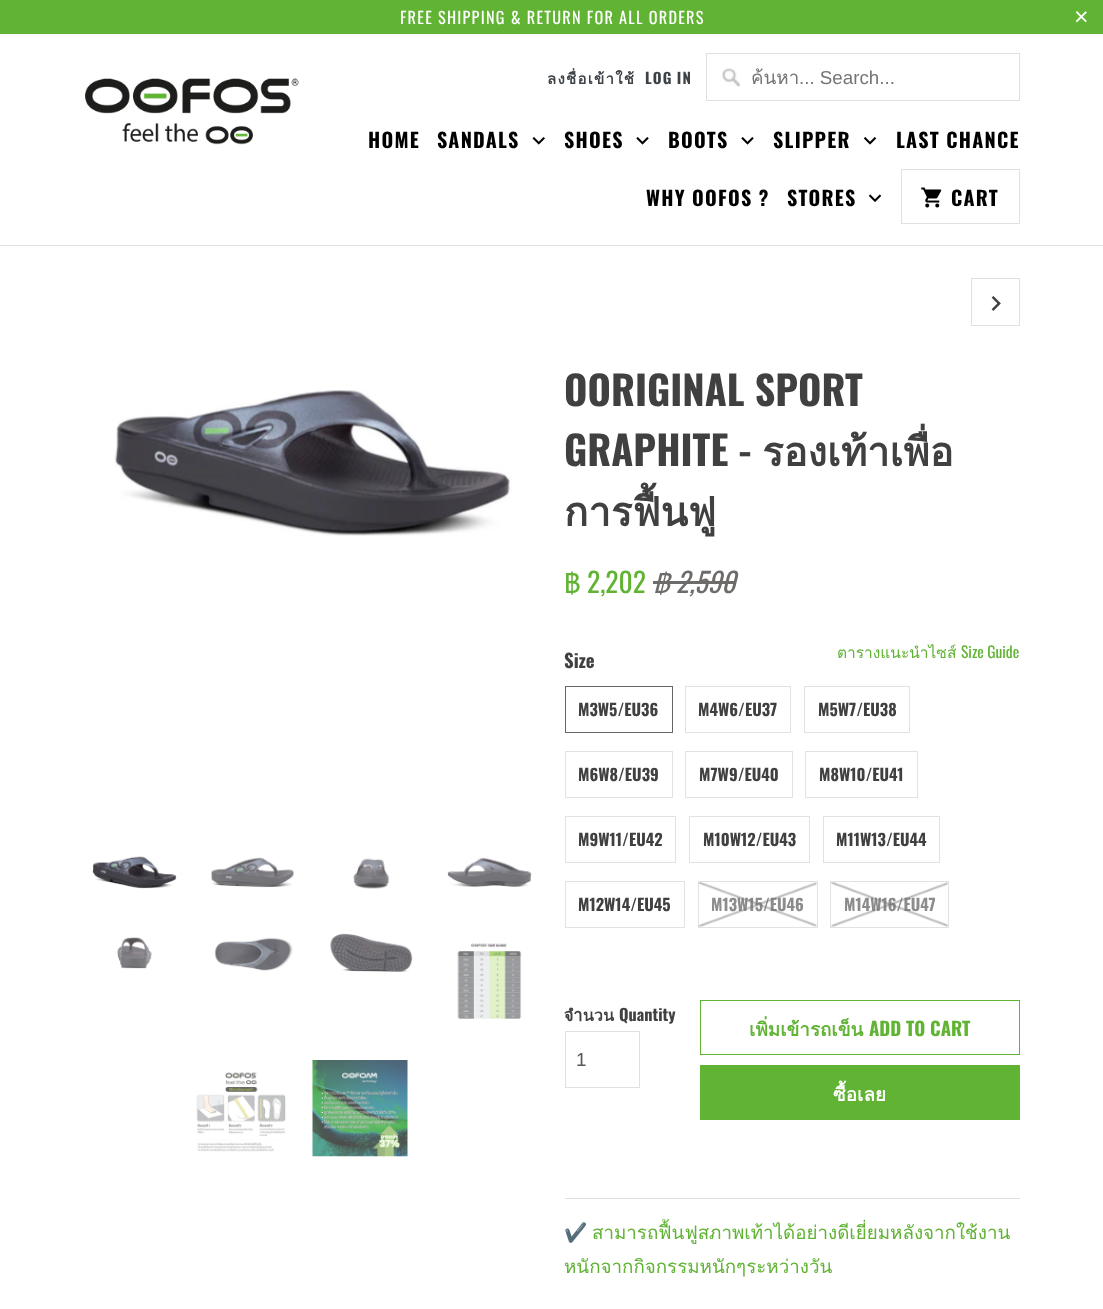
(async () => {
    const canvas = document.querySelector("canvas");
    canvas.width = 1103;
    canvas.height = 1309;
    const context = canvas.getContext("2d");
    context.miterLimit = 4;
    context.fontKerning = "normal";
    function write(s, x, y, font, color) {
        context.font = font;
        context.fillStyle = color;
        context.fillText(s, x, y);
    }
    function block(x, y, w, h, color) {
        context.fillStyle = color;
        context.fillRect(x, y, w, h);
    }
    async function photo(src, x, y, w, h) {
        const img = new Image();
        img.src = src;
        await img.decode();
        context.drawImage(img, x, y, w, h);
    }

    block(0, 0, 1103, 1309, "rgb(255, 255, 255)");
    block(0, 0, 1103, 34, "rgb(96, 179, 51)");
    context.letterSpacing = "1.25px";
    write("FREE SHIPPING & RETURN FOR ALL ORDERS", 400, 24, "16.25px Oswald", "rgb(255, 255, 255)");
    write("×", 1074, 25, "25px Liberation Sans", "rgb(255, 255, 255)");
    block(0, 245, 1103, 1, "rgb(224, 224, 224)");
    await photo("media/1.png", 85, 78, 214, 67);
    write("ลงชื่อเข้าใช้", 547, 84, "bold 15px Loma", "rgb(61, 66, 71)");
    context.wordSpacing = "-1px";
    write("LOG IN", 645, 84, "bold 15px Oswald", "rgb(61, 66, 71)");
    await photo("media/2.png", 722, 68, 18, 19);
    context.strokeStyle = "rgb(224, 224, 224)";
    context.strokeRect(706.5, 53.5, 313, 47);
    context.save();
    context.beginPath();
    context.rect(751, 63, 249, 30);
    context.clip();
    context.letterSpacing = "0px";
    context.wordSpacing = "0px";
    write("ค้นหา", 751, 84, "18.75px Loma", "rgb(117, 117, 117)");
    context.restore();
    context.letterSpacing = "0px";
    context.wordSpacing = "0px";
    write("... Search...", 799, 84, "18.75px Liberation Sans", "rgb(117, 117, 117)");
    context.letterSpacing = "1.25px";
    write("HOME", 368, 148, "bold 20px Oswald", "rgb(0, 0, 0)");
    write("SANDALS", 437, 148, "bold 20px Oswald", "rgb(0, 0, 0)");
    await photo("media/3.png", 532, 137, 13, 8);
    write("SHOES", 564, 148, "bold 20px Oswald", "rgb(0, 0, 0)");
    await photo("media/4.png", 636, 137, 13, 8);
    write("BOOTS", 668, 148, "bold 20px Oswald", "rgb(0, 0, 0)");
    await photo("media/4.png", 741, 137, 13, 8);
    write("SLIPPER", 773, 148, "bold 20px Oswald", "rgb(0, 0, 0)");
    await photo("media/5.png", 863, 137, 14, 8);
    write("LAST CHANCE", 896, 148, "bold 20px Oswald", "rgb(0, 0, 0)");
    write("WHY OOFOS ?", 646, 206, "bold 20px Oswald", "rgb(0, 0, 0)");
    write("STORES", 787, 206, "bold 20px Oswald", "rgb(0, 0, 0)");
    await photo("media/6.png", 868, 194, 14, 8);
    context.strokeRect(901.5, 169.5, 118, 54);
    await photo("media/7.png", 921, 187, 21, 21);
    write("CART", 951, 206, "bold 20px Oswald", "rgb(0, 0, 0)");
    context.strokeRect(971.5, 278.5, 48, 47);
    await photo("media/8.png", 991, 296, 10, 15);
    await photo("media/9.png", 114, 390, 398, 146);
    await photo("media/10.png", 92, 856, 85, 33);
    await photo("media/11.png", 210, 857, 85, 31);
    await photo("media/12.png", 353, 858, 37, 31);
    await photo("media/13.png", 447, 857, 85, 30);
    await photo("media/14.png", 117, 937, 35, 32);
    await photo("media/15.png", 214, 937, 79, 34);
    await photo("media/16.png", 330, 933, 83, 39);
    await photo("media/17.png", 457, 943, 65, 76);
    await photo("media/18.png", 196, 1072, 90, 80);
    await photo("media/19.png", 312, 1060, 96, 97);
    context.letterSpacing = "0px";
    write("OORIGINAL SPORT", 564, 406, "bold 40px Oswald", "rgb(64, 64, 64)");
    write("GRAPHITE -", 564, 466, "bold 40px Oswald", "rgb(64, 64, 64)");
    write("รองเท้าเพื่อ", 762, 466, "bold 40px Loma", "rgb(64, 64, 64)");
    write("การฟื้นฟู", 564, 526, "bold 40px Loma", "rgb(64, 64, 64)");
    write("฿", 564, 593, "27.5px Loma", "rgb(96, 179, 51)");
    write("2,202", 587, 593, "27.5px Oswald", "rgb(96, 179, 51)");
    write("฿", 653, 593, "italic 27.5px Loma", "rgb(110, 108, 106)");
    block(653, 581, 82, 3, "rgb(110, 108, 106)");
    write("2,590", 676, 593, "italic 27.5px Oswald", "rgb(110, 108, 106)");
    write("ตารางแนะนำไซส์", 837, 658, "15.5px Loma", "rgb(96, 179, 51)");
    write("Size Guide", 961, 658, "15.5px Oswald", "rgb(96, 179, 51)");
    write("Size", 564, 668, "bold 18.75px Oswald", "rgb(64, 64, 64)");
    context.strokeStyle = "rgb(102, 102, 102)";
    context.strokeRect(565.5, 686.5, 107, 46);
    write("M3W5/EU36", 578, 716, "bold 16.25px Oswald", "rgb(64, 64, 64)");
    context.strokeStyle = "rgb(226, 226, 226)";
    context.strokeRect(685.5, 686.5, 105, 46);
    write("M4W6/EU37", 698, 716, "bold 16.25px Oswald", "rgb(64, 64, 64)");
    context.strokeRect(804.5, 686.5, 105, 46);
    write("M5W7/EU38", 818, 716, "bold 16.25px Oswald", "rgb(64, 64, 64)");
    context.strokeRect(565.5, 751.5, 107, 46);
    write("M6W8/EU39", 578, 781, "bold 16.25px Oswald", "rgb(64, 64, 64)");
    context.strokeRect(685.5, 751.5, 107, 46);
    write("M7W9/EU40", 699, 781, "bold 16.25px Oswald", "rgb(64, 64, 64)");
    context.strokeRect(805.5, 751.5, 112, 46);
    write("M8W10/EU41", 819, 781, "bold 16.25px Oswald", "rgb(64, 64, 64)");
    context.strokeRect(565.5, 816.5, 110, 46);
    write("M9W11/EU42", 578, 846, "bold 16.25px Oswald", "rgb(64, 64, 64)");
    context.strokeRect(689.5, 816.5, 120, 46);
    write("M10W12/EU43", 703, 846, "bold 16.25px Oswald", "rgb(64, 64, 64)");
    context.strokeRect(823.5, 816.5, 116, 46);
    write("M11W13/EU44", 836, 846, "bold 16.25px Oswald", "rgb(64, 64, 64)");
    context.strokeRect(565.5, 881.5, 119, 46);
    write("M12W14/EU45", 578, 911, "bold 16.25px Oswald", "rgb(64, 64, 64)");
    context.strokeRect(698.5, 881.5, 119, 46);
    write("M13W15/EU46", 711, 911, "bold 16.25px Oswald", "rgb(140, 140, 140)");
    await photo("media/20.png", 698, 882, 119, 45);
    context.strokeRect(830.5, 881.5, 118, 46);
    write("M14W16/EU47", 844, 911, "bold 16.25px Oswald", "rgb(140, 140, 140)");
    await photo("media/21.png", 831, 882, 117, 45);
    write("จำนวน", 564, 1021, "bold 16.25px Loma", "rgb(64, 64, 64)");
    write("Quantity", 619, 1021, "bold 16.25px Oswald", "rgb(64, 64, 64)");
    context.strokeStyle = "rgb(224, 224, 224)";
    context.strokeRect(565.5, 1031.5, 74, 56);
    write("1", 576, 1066, "18.75px Liberation Sans", "rgb(81, 89, 93)");
    context.strokeStyle = "rgb(96, 179, 51)";
    context.strokeRect(700.5, 1000.5, 319, 54);
    write("เพิ่มเข้ารถเข็น", 749, 1036, "bold 18.75px Loma", "rgb(96, 179, 51)");
    write("ADD TO CART", 869, 1036, "bold 18.75px Oswald", "rgb(96, 179, 51)");
    block(700, 1065, 320, 55, "rgb(96, 179, 51)");
    write("ซื้อเลย", 833, 1101, "bold 18.75px Loma", "rgb(255, 255, 255)");
    block(565, 1198, 455, 1, "rgb(224, 224, 224)");
    write("✔️", 564, 1239, "18.75px Noto Color Emoji", "rgb(96, 179, 51)");
    write("สามารถฟื้นฟูสภาพเท้าได้อย่างดีเยี่ยมหลังจากใช้งาน", 592, 1239, "18.75px Loma", "rgb(96, 179, 51)");
    write("หนักจากกิจกรรมหนักๆระหว่างวัน", 564, 1273, "18.75px Loma", "rgb(96, 179, 51)");
})();
